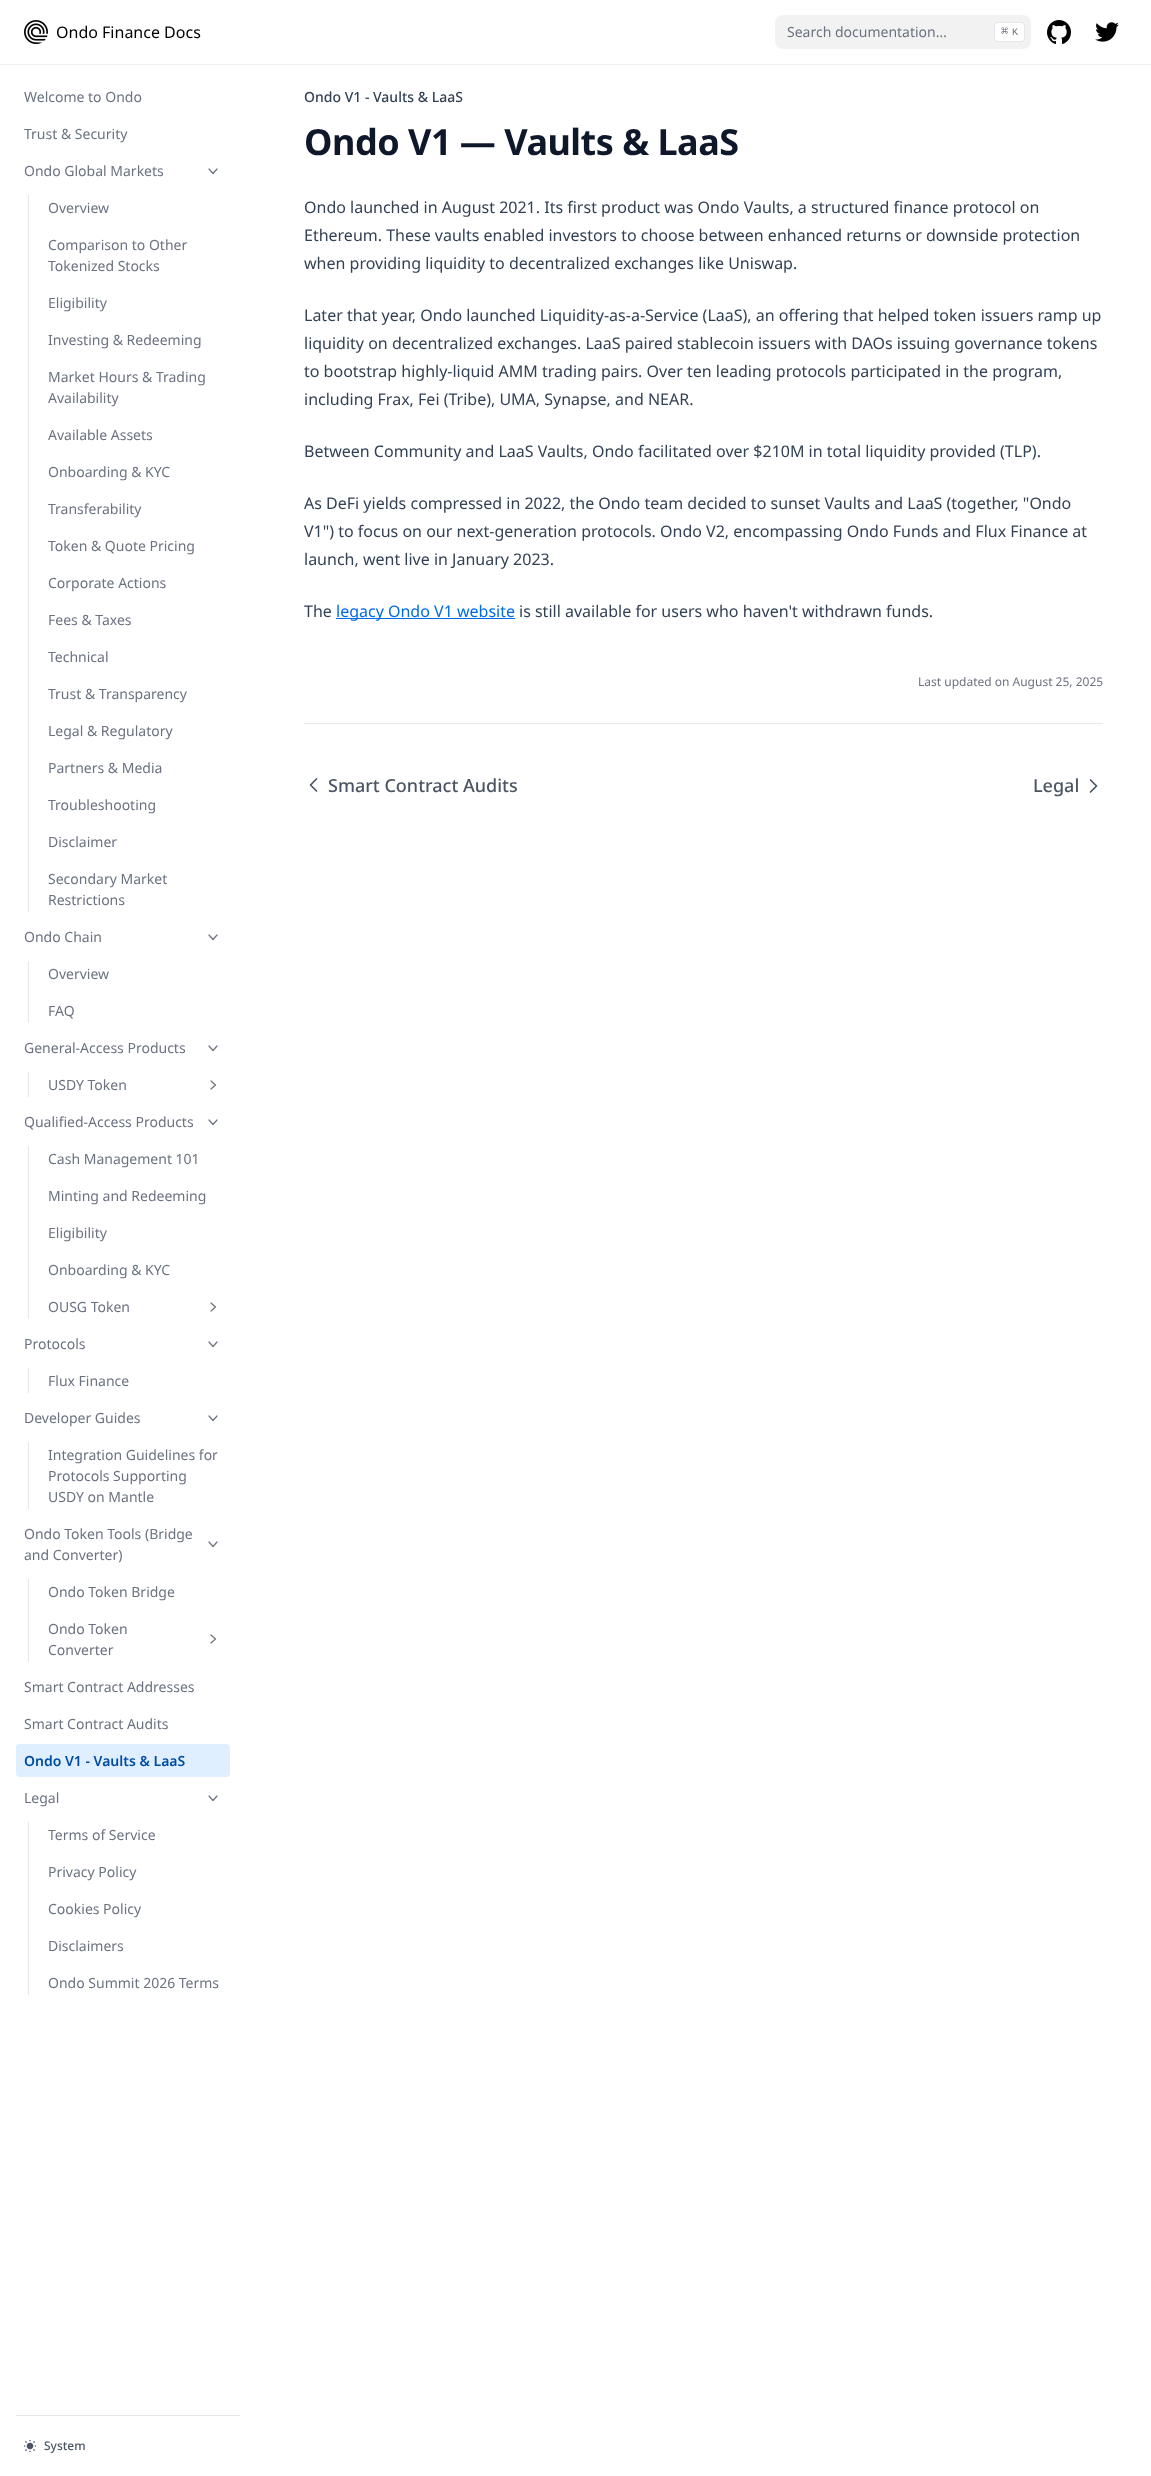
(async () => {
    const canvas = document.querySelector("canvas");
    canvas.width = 1151;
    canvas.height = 2476;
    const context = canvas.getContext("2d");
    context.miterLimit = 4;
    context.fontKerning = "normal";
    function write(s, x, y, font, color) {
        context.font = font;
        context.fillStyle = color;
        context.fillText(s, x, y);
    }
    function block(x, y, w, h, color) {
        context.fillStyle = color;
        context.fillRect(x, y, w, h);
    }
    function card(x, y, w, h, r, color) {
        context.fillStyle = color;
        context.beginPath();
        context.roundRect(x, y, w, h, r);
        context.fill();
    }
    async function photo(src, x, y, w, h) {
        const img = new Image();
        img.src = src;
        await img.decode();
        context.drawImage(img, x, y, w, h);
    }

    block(0, 0, 1151, 2476, "rgb(255, 255, 255)");
    await photo("media/1.png", 24, 20, 24, 24);
    write("Ondo Finance Docs", 56, 38, "16px Noto Sans", "rgb(0, 0, 0)");
    card(775, 15, 256, 34, 8, "rgb(242, 242, 242)");
    write("Search documentation…", 787, 37, "14px Noto Sans", "rgb(107, 114, 128)");
    context.fillStyle = "rgb(255, 255, 255)";
    context.beginPath();
    context.roundRect(994.5, 22.5, 30, 19, 3.5);
    context.fill();
    context.strokeStyle = "rgb(229, 231, 235)";
    context.stroke();
    write("⌘", 1001, 35, "12px DejaVu Sans Mono", "rgb(107, 114, 128)");
    write("K", 1012, 35, "10px Liberation Mono", "rgb(107, 114, 128)");
    await photo("media/2.png", 1047, 20, 24, 24);
    await photo("media/3.png", 1095, 22, 24, 20);
    block(0, 64, 1151, 1, "rgb(240, 240, 240)");
    write("Welcome to Ondo", 24, 102, "14px Noto Sans", "rgb(107, 114, 128)");
    write("Trust & Security", 24, 139, "14px Noto Sans", "rgb(107, 114, 128)");
    write("Ondo Global Markets", 24, 176, "14px Noto Sans", "rgb(107, 114, 128)");
    context.beginPath();
    context.moveTo(217, 169);
    context.lineTo(213, 173.5);
    context.lineTo(209, 169);
    context.strokeStyle = "rgb(107, 114, 128)";
    context.lineWidth = 1.2;
    context.lineCap = "round";
    context.lineJoin = "round";
    context.stroke();
    block(28, 195, 1, 717, "rgb(229, 231, 235)");
    write("Overview", 48, 213, "14px Noto Sans", "rgb(107, 114, 128)");
    write("Comparison to Other", 48, 250, "14px Noto Sans", "rgb(107, 114, 128)");
    write("Tokenized Stocks", 48, 271, "14px Noto Sans", "rgb(107, 114, 128)");
    write("Eligibility", 48, 308, "14px Noto Sans", "rgb(107, 114, 128)");
    write("Investing & Redeeming", 48, 345, "14px Noto Sans", "rgb(107, 114, 128)");
    write("Market Hours & Trading", 48, 382, "14px Noto Sans", "rgb(107, 114, 128)");
    write("Availability", 48, 403, "14px Noto Sans", "rgb(107, 114, 128)");
    write("Available Assets", 48, 440, "14px Noto Sans", "rgb(107, 114, 128)");
    write("Onboarding & KYC", 48, 477, "14px Noto Sans", "rgb(107, 114, 128)");
    write("Transferability", 48, 514, "14px Noto Sans", "rgb(107, 114, 128)");
    write("Token & Quote Pricing", 48, 551, "14px Noto Sans", "rgb(107, 114, 128)");
    write("Corporate Actions", 48, 588, "14px Noto Sans", "rgb(107, 114, 128)");
    write("Fees & Taxes", 48, 625, "14px Noto Sans", "rgb(107, 114, 128)");
    write("Technical", 48, 662, "14px Noto Sans", "rgb(107, 114, 128)");
    write("Trust & Transparency", 48, 699, "14px Noto Sans", "rgb(107, 114, 128)");
    write("Legal & Regulatory", 48, 736, "14px Noto Sans", "rgb(107, 114, 128)");
    write("Partners & Media", 48, 773, "14px Noto Sans", "rgb(107, 114, 128)");
    write("Troubleshooting", 48, 810, "14px Noto Sans", "rgb(107, 114, 128)");
    write("Disclaimer", 48, 847, "14px Noto Sans", "rgb(107, 114, 128)");
    write("Secondary Market", 48, 884, "14px Noto Sans", "rgb(107, 114, 128)");
    write("Restrictions", 48, 905, "14px Noto Sans", "rgb(107, 114, 128)");
    write("Ondo Chain", 24, 942, "14px Noto Sans", "rgb(107, 114, 128)");
    context.beginPath();
    context.moveTo(217, 935);
    context.lineTo(213, 939.5);
    context.lineTo(209, 935);
    context.stroke();
    block(28, 961, 1, 62, "rgb(229, 231, 235)");
    write("Overview", 48, 979, "14px Noto Sans", "rgb(107, 114, 128)");
    write("FAQ", 48, 1016, "14px Noto Sans", "rgb(107, 114, 128)");
    write("General-Access Products", 24, 1053, "14px Noto Sans", "rgb(107, 114, 128)");
    context.beginPath();
    context.moveTo(217, 1046);
    context.lineTo(213, 1050.5);
    context.lineTo(209, 1046);
    context.stroke();
    block(28, 1072, 1, 25, "rgb(229, 231, 235)");
    write("USDY Token", 48, 1090, "14px Noto Sans", "rgb(107, 114, 128)");
    context.beginPath();
    context.moveTo(211, 1081);
    context.lineTo(215.5, 1085);
    context.lineTo(211, 1089);
    context.stroke();
    write("Qualified-Access Products", 24, 1127, "14px Noto Sans", "rgb(107, 114, 128)");
    context.beginPath();
    context.moveTo(217, 1120);
    context.lineTo(213, 1124.5);
    context.lineTo(209, 1120);
    context.stroke();
    block(28, 1146, 1, 173, "rgb(229, 231, 235)");
    write("Cash Management 101", 48, 1164, "14px Noto Sans", "rgb(107, 114, 128)");
    write("Minting and Redeeming", 48, 1201, "14px Noto Sans", "rgb(107, 114, 128)");
    write("Eligibility", 48, 1238, "14px Noto Sans", "rgb(107, 114, 128)");
    write("Onboarding & KYC", 48, 1275, "14px Noto Sans", "rgb(107, 114, 128)");
    write("OUSG Token", 48, 1312, "14px Noto Sans", "rgb(107, 114, 128)");
    context.beginPath();
    context.moveTo(211, 1303);
    context.lineTo(215.5, 1307);
    context.lineTo(211, 1311);
    context.stroke();
    write("Protocols", 24, 1349, "14px Noto Sans", "rgb(107, 114, 128)");
    context.beginPath();
    context.moveTo(217, 1342);
    context.lineTo(213, 1346.5);
    context.lineTo(209, 1342);
    context.stroke();
    block(28, 1368, 1, 25, "rgb(229, 231, 235)");
    write("Flux Finance", 48, 1386, "14px Noto Sans", "rgb(107, 114, 128)");
    write("Developer Guides", 24, 1423, "14px Noto Sans", "rgb(107, 114, 128)");
    context.beginPath();
    context.moveTo(217, 1416);
    context.lineTo(213, 1420.5);
    context.lineTo(209, 1416);
    context.stroke();
    block(28, 1442, 1, 67, "rgb(229, 231, 235)");
    write("Integration Guidelines for", 48, 1460, "14px Noto Sans", "rgb(107, 114, 128)");
    write("Protocols Supporting", 48, 1481, "14px Noto Sans", "rgb(107, 114, 128)");
    write("USDY on Mantle", 48, 1502, "14px Noto Sans", "rgb(107, 114, 128)");
    write("Ondo Token Tools (Bridge", 24, 1539, "14px Noto Sans", "rgb(107, 114, 128)");
    context.beginPath();
    context.moveTo(217, 1542);
    context.lineTo(213, 1546.5);
    context.lineTo(209, 1542);
    context.stroke();
    write("and Converter)", 24, 1560, "14px Noto Sans", "rgb(107, 114, 128)");
    block(28, 1579, 1, 83, "rgb(229, 231, 235)");
    write("Ondo Token Bridge", 48, 1597, "14px Noto Sans", "rgb(107, 114, 128)");
    write("Ondo Token", 48, 1634, "14px Noto Sans", "rgb(107, 114, 128)");
    context.beginPath();
    context.moveTo(211, 1635);
    context.lineTo(215.5, 1639);
    context.lineTo(211, 1643);
    context.stroke();
    write("Converter", 48, 1655, "14px Noto Sans", "rgb(107, 114, 128)");
    write("Smart Contract Addresses", 24, 1692, "14px Noto Sans", "rgb(107, 114, 128)");
    write("Smart Contract Audits", 24, 1729, "14px Noto Sans", "rgb(107, 114, 128)");
    card(16, 1744, 214, 33, 4, "rgb(224, 239, 255)");
    write("Ondo V1 - Vaults & LaaS", 24, 1766, "600 14px Noto Sans", "rgb(0, 76, 163)");
    write("Legal", 24, 1803, "14px Noto Sans", "rgb(107, 114, 128)");
    context.beginPath();
    context.moveTo(217, 1796);
    context.lineTo(213, 1800.5);
    context.lineTo(209, 1796);
    context.stroke();
    block(28, 1822, 1, 173, "rgb(229, 231, 235)");
    write("Terms of Service", 48, 1840, "14px Noto Sans", "rgb(107, 114, 128)");
    write("Privacy Policy", 48, 1877, "14px Noto Sans", "rgb(107, 114, 128)");
    write("Cookies Policy", 48, 1914, "14px Noto Sans", "rgb(107, 114, 128)");
    write("Disclaimers", 48, 1951, "14px Noto Sans", "rgb(107, 114, 128)");
    write("Ondo Summit 2026 Terms", 48, 1988, "14px Noto Sans", "rgb(107, 114, 128)");
    block(16, 2415, 224, 1, "rgb(229, 231, 235)");
    await photo("media/4.png", 24, 2440, 12, 12);
    write("System", 44, 2450, "500 12px Noto Sans", "rgb(75, 85, 99)");
    write("Ondo V1 - Vaults & LaaS", 304, 102, "500 14px Noto Sans", "rgb(51, 65, 85)");
    context.letterSpacing = "-0.5px";
    write("Ondo V1 — Vaults & LaaS", 304, 155, "bold 36px Noto Sans", "rgb(15, 23, 42)");
    context.letterSpacing = "0px";
    write("Ondo launched in August 2021. Its first product was Ondo Vaults, a structured finance protocol on", 304, 213, "16px Noto Sans", "rgb(51, 65, 85)");
    write("Ethereum. These vaults enabled investors to choose between enhanced returns or downside protection", 304, 241, "16px Noto Sans", "rgb(51, 65, 85)");
    write("when providing liquidity to decentralized exchanges like Uniswap.", 304, 269, "16px Noto Sans", "rgb(51, 65, 85)");
    write("Later that year, Ondo launched Liquidity-as-a-Service (LaaS), an offering that helped token issuers ramp up", 304, 321, "16px Noto Sans", "rgb(51, 65, 85)");
    write("liquidity on decentralized exchanges. LaaS paired stablecoin issuers with DAOs issuing governance tokens", 304, 349, "16px Noto Sans", "rgb(51, 65, 85)");
    write("to bootstrap highly-liquid AMM trading pairs. Over ten leading protocols participated in the program,", 304, 377, "16px Noto Sans", "rgb(51, 65, 85)");
    write("including Frax, Fei (Tribe), UMA, Synapse, and NEAR.", 304, 405, "16px Noto Sans", "rgb(51, 65, 85)");
    write("Between Community and LaaS Vaults, Ondo facilitated over $210M in total liquidity provided (TLP).", 304, 457, "16px Noto Sans", "rgb(51, 65, 85)");
    write("As DeFi yields compressed in 2022, the Ondo team decided to sunset Vaults and LaaS (together, \"Ondo", 304, 509, "16px Noto Sans", "rgb(51, 65, 85)");
    write("V1\") to focus on our next-generation protocols. Ondo V2, encompassing Ondo Funds and Flux Finance at", 304, 537, "16px Noto Sans", "rgb(51, 65, 85)");
    write("launch, went live in January 2023.", 304, 565, "16px Noto Sans", "rgb(51, 65, 85)");
    write("The", 304, 617, "16px Noto Sans", "rgb(51, 65, 85)");
    block(336, 618, 179, 1, "rgb(0, 107, 230)");
    write("legacy Ondo V1 website", 336, 617, "16px Noto Sans", "rgb(0, 107, 230)");
    write("is still available for users who haven't withdrawn funds.", 519, 617, "16px Noto Sans", "rgb(51, 65, 85)");
    write("Last updated on August 25, 2025", 918, 686, "12px Noto Sans", "rgb(107, 114, 128)");
    block(304, 723, 799, 1, "rgb(229, 231, 235)");
    context.beginPath();
    context.moveTo(316.5, 791);
    context.lineTo(310.5, 785);
    context.lineTo(316.5, 779);
    context.strokeStyle = "rgb(75, 85, 99)";
    context.lineWidth = 1.7;
    context.stroke();
    write("Smart Contract Audits", 328, 792, "500 18px Noto Sans", "rgb(75, 85, 99)");
    write("Legal", 1033, 792, "500 18px Noto Sans", "rgb(75, 85, 99)");
    context.beginPath();
    context.moveTo(1090.5, 780);
    context.lineTo(1096.5, 786);
    context.lineTo(1090.5, 792);
    context.stroke();
})();
